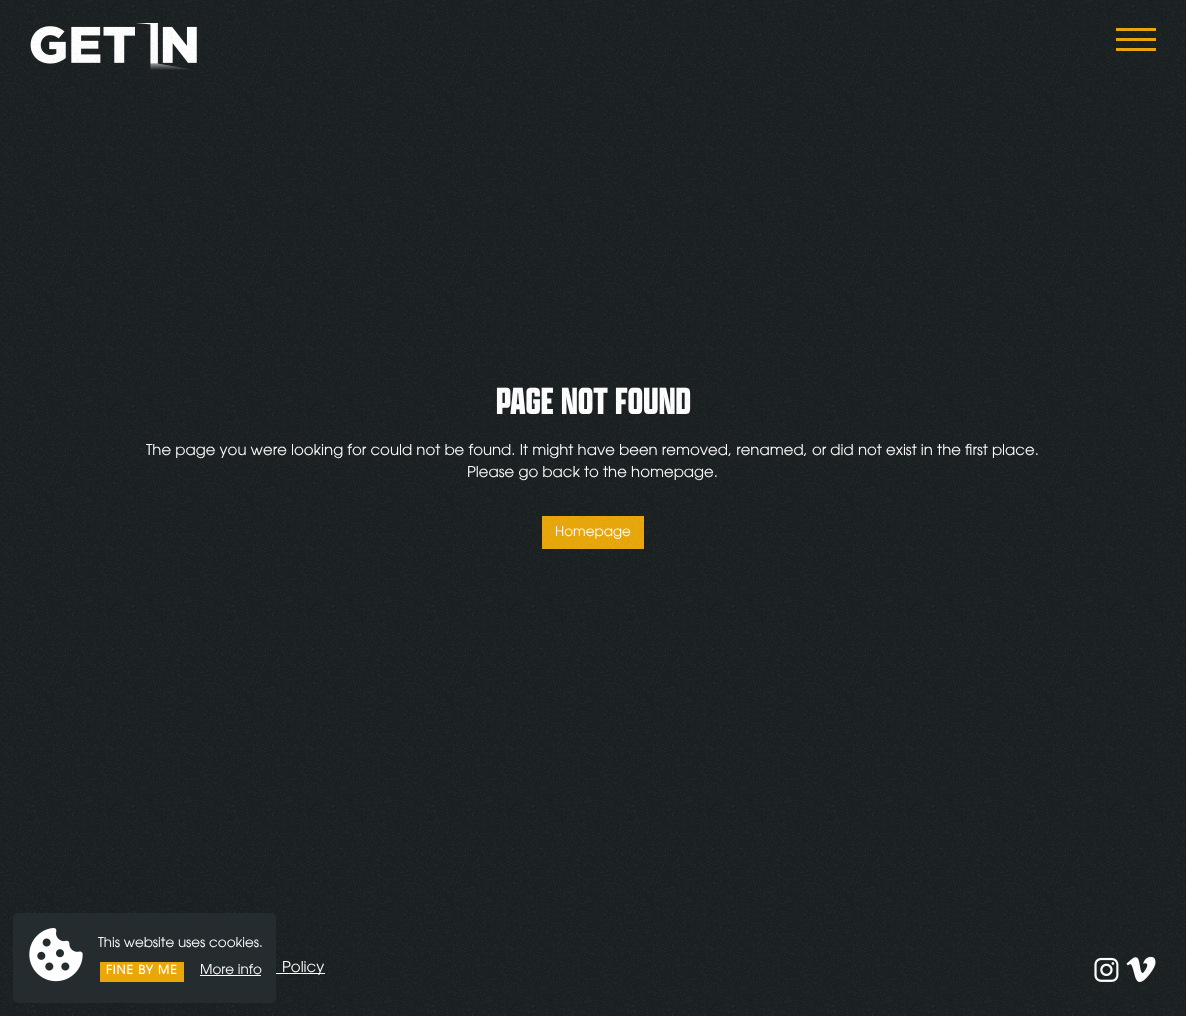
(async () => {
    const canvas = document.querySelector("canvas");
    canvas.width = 1186;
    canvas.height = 1016;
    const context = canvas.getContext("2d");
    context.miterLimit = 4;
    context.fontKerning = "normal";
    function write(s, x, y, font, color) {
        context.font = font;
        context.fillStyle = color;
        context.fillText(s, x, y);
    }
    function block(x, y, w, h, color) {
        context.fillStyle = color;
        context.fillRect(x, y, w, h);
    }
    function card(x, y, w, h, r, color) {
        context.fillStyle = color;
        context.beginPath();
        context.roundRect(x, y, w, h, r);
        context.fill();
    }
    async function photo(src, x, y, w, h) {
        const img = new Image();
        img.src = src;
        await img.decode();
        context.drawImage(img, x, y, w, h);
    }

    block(0, 0, 1186, 1016, "rgb(26, 31, 33)");
    await photo("media/2.png", 30, 23, 167, 47);
    block(1116, 28, 40, 3, "rgb(233, 167, 9)");
    block(1116, 38, 40, 3, "rgb(233, 167, 9)");
    block(1116, 48, 40, 3, "rgb(233, 167, 9)");
    write("PAGE NOT FOUND", 496, 414, "bold 40.25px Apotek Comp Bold", "rgb(255, 255, 255)");
    write("The page you were looking for could not be found. It might have been removed, renamed, or did not exist in the first place.", 146, 455, "300 14.95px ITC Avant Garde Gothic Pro", "rgb(255, 255, 255)");
    write("Please go back to the homepage.", 467, 477, "300 14.95px ITC Avant Garde Gothic Pro", "rgb(255, 255, 255)");
    block(542, 516, 102, 33, "rgb(233, 167, 9)");
    write("Homepage", 555, 536, "300 13.5px ITC Avant Garde Gothic Pro", "rgb(255, 255, 255)");
    block(276, 973, 49, 1, "rgb(255, 255, 255)");
    write("Policy", 282, 972, "300 14.95px ITC Avant Garde Gothic Pro", "rgb(255, 255, 255)");
    await photo("media/4.png", 1094, 957, 25, 25);
    await photo("media/5.png", 1126, 956, 30, 26);
    await photo("media/1.png", 0, 0, 1186, 1016);
    card(13, 913, 263, 90, 5, "rgb(37, 44, 47)");
    await photo("media/3.png", 29, 927, 54, 55);
    write("This website uses cookies.", 98, 947, "300 13.5px ITC Avant Garde Gothic Pro", "rgb(255, 255, 255)");
    block(100, 962, 84, 20, "rgb(233, 167, 9)");
    context.letterSpacing = "1px";
    write("FINE BY ME", 106, 974, "bold 12px ITC Avant Garde Gothic Pro", "rgb(255, 255, 255)");
    context.letterSpacing = "0px";
    write("More info", 200, 974, "300 13.5px ITC Avant Garde Gothic Pro", "rgb(255, 255, 255)");
    block(200, 975, 61, 1, "rgb(255, 255, 255)");
})();
